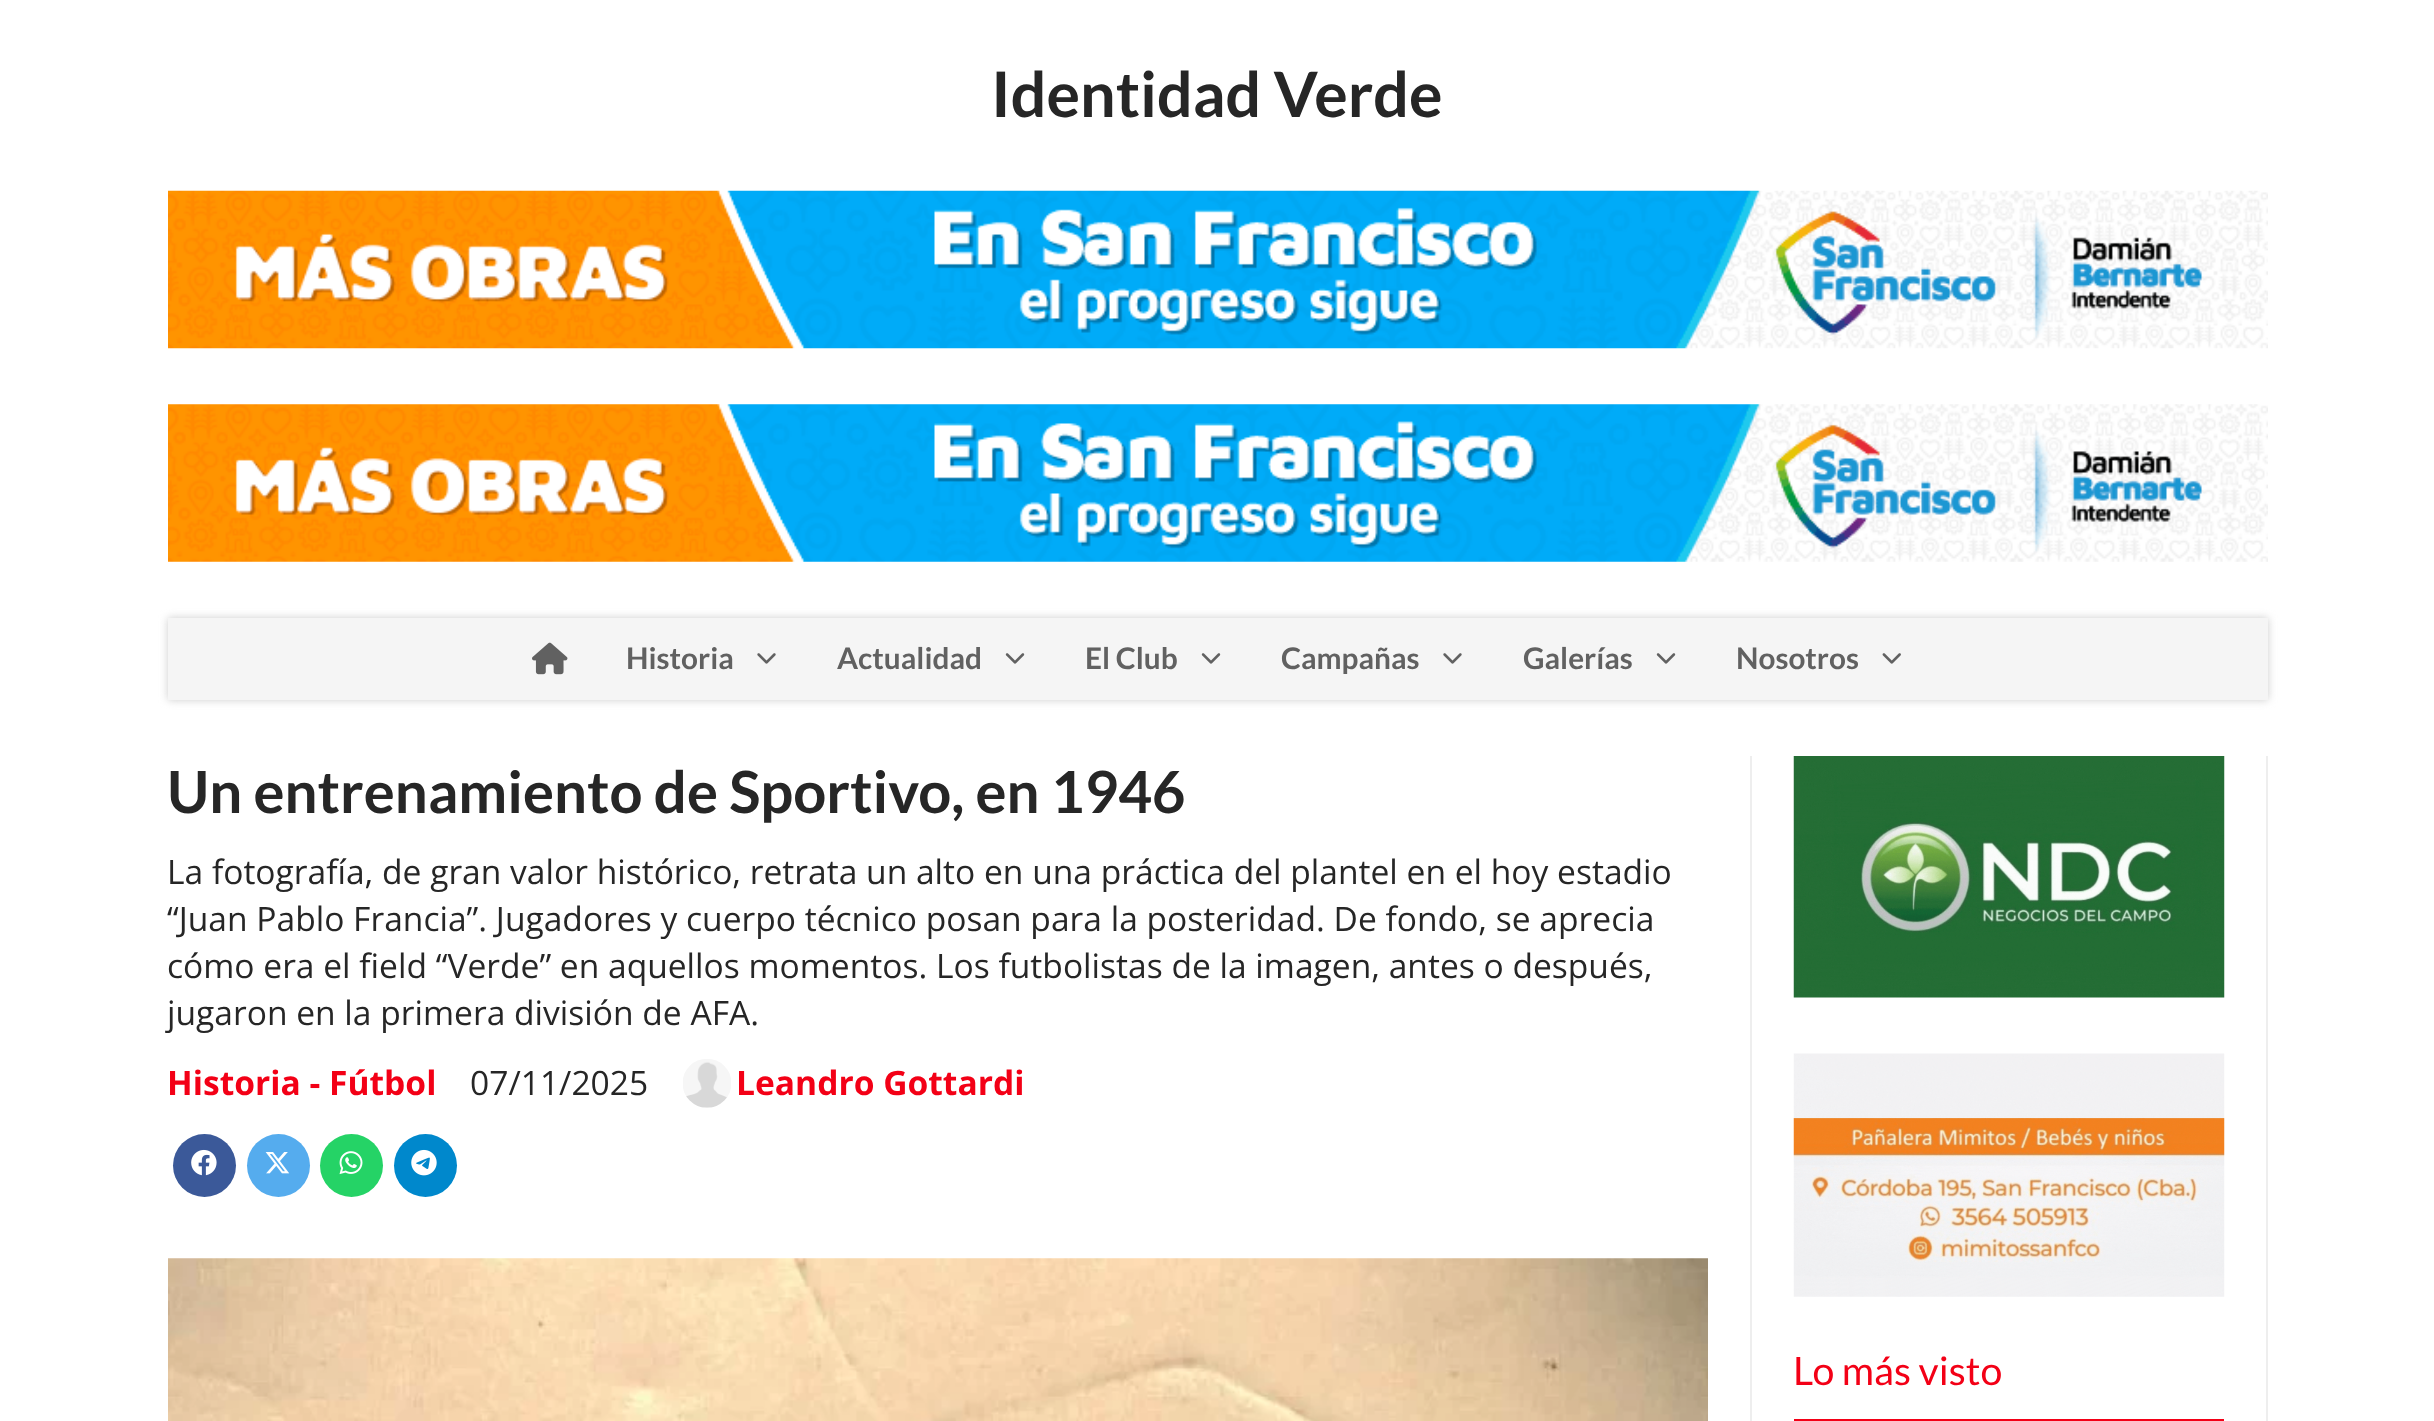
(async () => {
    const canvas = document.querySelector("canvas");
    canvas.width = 2434;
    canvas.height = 1421;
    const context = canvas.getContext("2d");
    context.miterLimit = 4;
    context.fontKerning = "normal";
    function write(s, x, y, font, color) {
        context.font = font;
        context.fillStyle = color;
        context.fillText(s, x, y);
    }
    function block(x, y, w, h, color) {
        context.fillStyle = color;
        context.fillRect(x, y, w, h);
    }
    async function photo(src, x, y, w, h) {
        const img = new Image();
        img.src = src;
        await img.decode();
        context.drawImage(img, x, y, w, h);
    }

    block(0, 0, 2434, 1421, "rgb(255, 255, 255)");
    write("Identidad Verde", 991, 117, "bold 62.75px Lato", "rgb(38, 38, 38)");
    await photo("media/1.png", 168, 190, 2100, 159);
    await photo("media/2.png", 168, 404, 2100, 158);
    context.fillStyle = "rgb(204, 204, 204)";
    context.filter = "blur(4.5px)";
    context.beginPath();
    context.rect(168, 618, 2100, 82);
    context.fill();
    context.filter = "none";
    block(168, 618, 2100, 82, "rgb(245, 245, 245)");
    await photo("media/3.png", 532, 642, 36, 33);
    write("Historia", 626, 669, "bold 29.75px Lato", "rgb(97, 97, 97)");
    await photo("media/4.png", 757, 653, 19, 11);
    write("Actualidad", 837, 669, "bold 29.75px Lato", "rgb(97, 97, 97)");
    await photo("media/5.png", 1005, 653, 20, 11);
    write("El Club", 1085, 669, "bold 29.75px Lato", "rgb(97, 97, 97)");
    await photo("media/5.png", 1201, 653, 20, 11);
    write("Campañas", 1281, 669, "bold 29.75px Lato", "rgb(97, 97, 97)");
    await photo("media/4.png", 1443, 653, 19, 11);
    write("Galerías", 1523, 669, "bold 29.75px Lato", "rgb(97, 97, 97)");
    await photo("media/5.png", 1656, 653, 20, 11);
    write("Nosotros", 1736, 669, "bold 29.75px Lato", "rgb(97, 97, 97)");
    await photo("media/6.png", 1882, 653, 19, 11);
    write("Un entrenamiento de Sportivo, en 1946", 167, 813, "bold 58.1px Lato", "rgb(38, 38, 38)");
    write("La fotografía, de gran valor histórico, retrata un alto en una práctica del plantel en el hoy estadio", 167, 884, "33.6px Open Sans", "rgb(38, 38, 38)");
    write("“Juan Pablo Francia”. Jugadores y cuerpo técnico posan para la posteridad. De fondo, se aprecia", 167, 931, "33.6px Open Sans", "rgb(38, 38, 38)");
    write("cómo era el field “Verde” en aquellos momentos. Los futbolistas de la imagen, antes o después,", 167, 978, "33.6px Open Sans", "rgb(38, 38, 38)");
    write("jugaron en la primera división de AFA.", 167, 1025, "33.6px Open Sans", "rgb(38, 38, 38)");
    write("Historia - Fútbol", 167, 1095, "bold 33.6px Open Sans", "rgb(243, 0, 22)");
    write("07/11/2025", 470, 1095, "33.6px Open Sans", "rgb(38, 38, 38)");
    await photo("media/7.png", 683, 1059, 48, 49);
    write("Leandro Gottardi", 736, 1095, "bold 33.6px Open Sans", "rgb(243, 0, 22)");
    context.fillStyle = "rgb(59, 89, 153)";
    context.beginPath();
    context.arc(204.5, 1165.5, 31.5, 0, Math.PI * 2);
    context.fill();
    await photo("media/8.png", 191, 1149, 26, 27);
    context.fillStyle = "rgb(85, 172, 238)";
    context.beginPath();
    context.arc(278.5, 1165.5, 31.5, 0, Math.PI * 2);
    context.fill();
    await photo("media/9.png", 265, 1152, 25, 22);
    context.fillStyle = "rgb(37, 211, 102)";
    context.beginPath();
    context.arc(351.5, 1165.5, 31.5, 0, Math.PI * 2);
    context.fill();
    await photo("media/10.png", 339, 1151, 24, 24);
    context.fillStyle = "rgb(0, 136, 204)";
    context.beginPath();
    context.arc(425.5, 1165.5, 31.5, 0, Math.PI * 2);
    context.fill();
    await photo("media/11.png", 411, 1149, 26, 27);
    await photo("media/12.png", 168, 1258, 1540, 163);
    block(2266, 756, 2, 665, "rgb(238, 238, 238)");
    block(1750, 756, 2, 665, "rgb(238, 238, 238)");
    await photo("media/13.png", 1793, 756, 432, 242);
    await photo("media/14.png", 1793, 1053, 432, 244);
    write("Lo más visto", 1793, 1385, "39.25px Lato", "rgb(243, 0, 22)");
    block(1794, 1419, 430, 2, "rgb(243, 0, 22)");
})();
